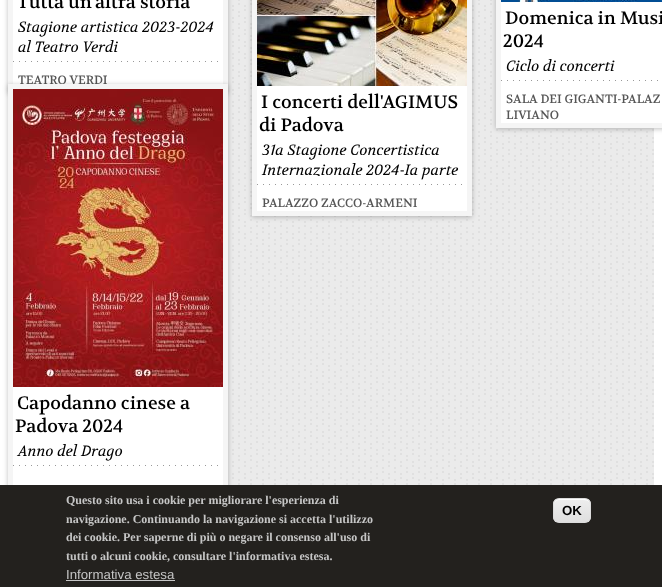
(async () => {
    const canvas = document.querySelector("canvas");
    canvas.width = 662;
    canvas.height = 587;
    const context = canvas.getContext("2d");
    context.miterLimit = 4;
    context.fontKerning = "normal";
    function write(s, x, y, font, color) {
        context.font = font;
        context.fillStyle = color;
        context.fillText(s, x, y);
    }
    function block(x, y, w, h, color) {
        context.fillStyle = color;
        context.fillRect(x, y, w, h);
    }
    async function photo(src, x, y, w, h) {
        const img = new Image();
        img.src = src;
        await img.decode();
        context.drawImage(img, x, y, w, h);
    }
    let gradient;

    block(0, 0, 662, 587, "rgb(255, 255, 255)");
    await photo("media/1.png", 228, 0, 426, 485);
    context.fillStyle = "rgba(0, 0, 0, 0.25)";
    context.filter = "blur(2.5px)";
    context.beginPath();
    context.rect(8, -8, 220, 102);
    context.fill();
    context.filter = "none";
    block(8, 0, 220, 84, "rgb(245, 245, 245)");
    block(13, 0, 210, 84, "rgb(255, 255, 255)");
    write("Tutta un'altra storia", 17, 8, "18px Volkhov", "rgb(0, 0, 0)");
    await photo("media/2.png", 13, 61, 205, 1);
    write("Stagione artistica 2023-2024", 18, 32, "italic 15px Volkhov", "rgb(0, 0, 0)");
    write("al Teatro Verdi", 18, 52, "italic 15px Volkhov", "rgb(0, 0, 0)");
    write("TEATRO VERDI", 18, 84, "12px Volkhov", "rgb(85, 85, 85)");
    context.fillStyle = "rgba(0, 0, 0, 0.25)";
    context.filter = "blur(2.5px)";
    context.beginPath();
    context.rect(496, -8, 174, 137);
    context.fill();
    context.filter = "none";
    block(496, 0, 166, 128, "rgb(245, 245, 245)");
    await photo("media/3.png", 501, 0, 161, 2);
    block(501, 2, 161, 121, "rgb(255, 255, 255)");
    write("Domenica in Musi", 505, 24, "18px Volkhov", "rgb(0, 0, 0)");
    write("2024", 503, 47, "18px Volkhov", "rgb(0, 0, 0)");
    await photo("media/4.png", 501, 80, 157, 1);
    write("Ciclo di concerti", 506, 71, "italic 15px Volkhov", "rgb(0, 0, 0)");
    write("SALA DEI GIGANTI-PALAZ", 506, 103, "12px Volkhov", "rgb(85, 85, 85)");
    write("LIVIANO", 506, 119, "12px Volkhov", "rgb(85, 85, 85)");
    context.fillStyle = "rgba(0, 0, 0, 0.25)";
    context.filter = "blur(2.5px)";
    context.beginPath();
    context.rect(252, -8, 220, 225);
    context.fill();
    context.filter = "none";
    block(252, 0, 220, 216, "rgb(245, 245, 245)");
    await photo("media/5.png", 257, 0, 210, 86);
    block(257, 86, 210, 125, "rgb(255, 255, 255)");
    write("I concerti dell'AGIMUS", 261, 108, "18px Volkhov", "rgb(0, 0, 0)");
    write("di Padova", 259, 131, "18px Volkhov", "rgb(0, 0, 0)");
    await photo("media/2.png", 257, 184, 205, 1);
    write("31a Stagione Concertistica", 262, 155, "italic 15px Volkhov", "rgb(0, 0, 0)");
    write("Internazionale 2024-Ia parte", 262, 175, "italic 15px Volkhov", "rgb(0, 0, 0)");
    write("PALAZZO ZACCO-ARMENI", 262, 207, "12px Volkhov", "rgb(85, 85, 85)");
    context.fillStyle = "rgba(0, 0, 0, 0.25)";
    context.filter = "blur(2.5px)";
    context.beginPath();
    context.rect(8, 85, 220, 413);
    context.fill();
    context.filter = "none";
    block(8, 84, 220, 401, "rgb(245, 245, 245)");
    await photo("media/6.png", 13, 89, 210, 298);
    block(13, 387, 210, 98, "rgb(255, 255, 255)");
    write("Capodanno cinese a", 17, 409, "18px Volkhov", "rgb(0, 0, 0)");
    write("Padova 2024", 15, 432, "18px Volkhov", "rgb(0, 0, 0)");
    await photo("media/2.png", 13, 465, 205, 1);
    write("Anno del Drago", 18, 456, "italic 15px Volkhov", "rgb(0, 0, 0)");
    block(0, 485, 662, 102, "rgb(35, 33, 30)");
    write("Questo sito usa i cookie per migliorare l'esperienza di", 66, 504, "bold 12px Liberation Serif", "rgb(198, 198, 198)");
    write("navigazione. Continuando la navigazione si accetta l'utilizzo", 66, 523, "bold 12px Liberation Serif", "rgb(198, 198, 198)");
    write("dei cookie. Per saperne di più o negare il consenso all'uso di", 66, 541, "bold 12px Liberation Serif", "rgb(198, 198, 198)");
    write("tutti o alcuni cookie, consultare l'informativa estesa.", 66, 560, "bold 12px Liberation Serif", "rgb(198, 198, 198)");
    write("Informativa estesa", 66, 579, "13.25px Liberation Sans", "rgb(198, 198, 198)");
    block(66, 580, 109, 1, "rgb(198, 198, 198)");
    context.save();
    context.beginPath();
    context.roundRect(553, 498, 38, 25, 6);
    context.clip();
    gradient = context.createLinearGradient(572, 499, 572, 522);
    gradient.addColorStop(0.05, "rgb(237, 237, 237)");
    gradient.addColorStop(1, "rgb(223, 223, 223)");
    context.fillStyle = gradient;
    context.fillRect(553, 499, 38, 23);
    context.restore();
    context.fillStyle = "rgb(255, 255, 255)";
    context.beginPath();
    context.moveTo(559, 500);
    context.lineTo(581, 500);
    context.bezierCurveTo(588.5, 500, 590, 501, 590, 506);
    context.bezierCurveTo(590, 499, 587, 499, 580.5, 499);
    context.lineTo(563.5, 499);
    context.bezierCurveTo(556.5, 499, 554, 499, 554, 506.5);
    context.bezierCurveTo(554, 503, 555, 500, 559, 500);
    context.closePath();
    context.fill();
    context.beginPath();
    context.roundRect(553.5, 498.5, 37, 24, 5.5);
    context.strokeStyle = "rgb(220, 220, 220)";
    context.stroke();
    write("OK", 562, 515, "bold 13.25px Liberation Sans", "rgb(0, 0, 0)");
})();
